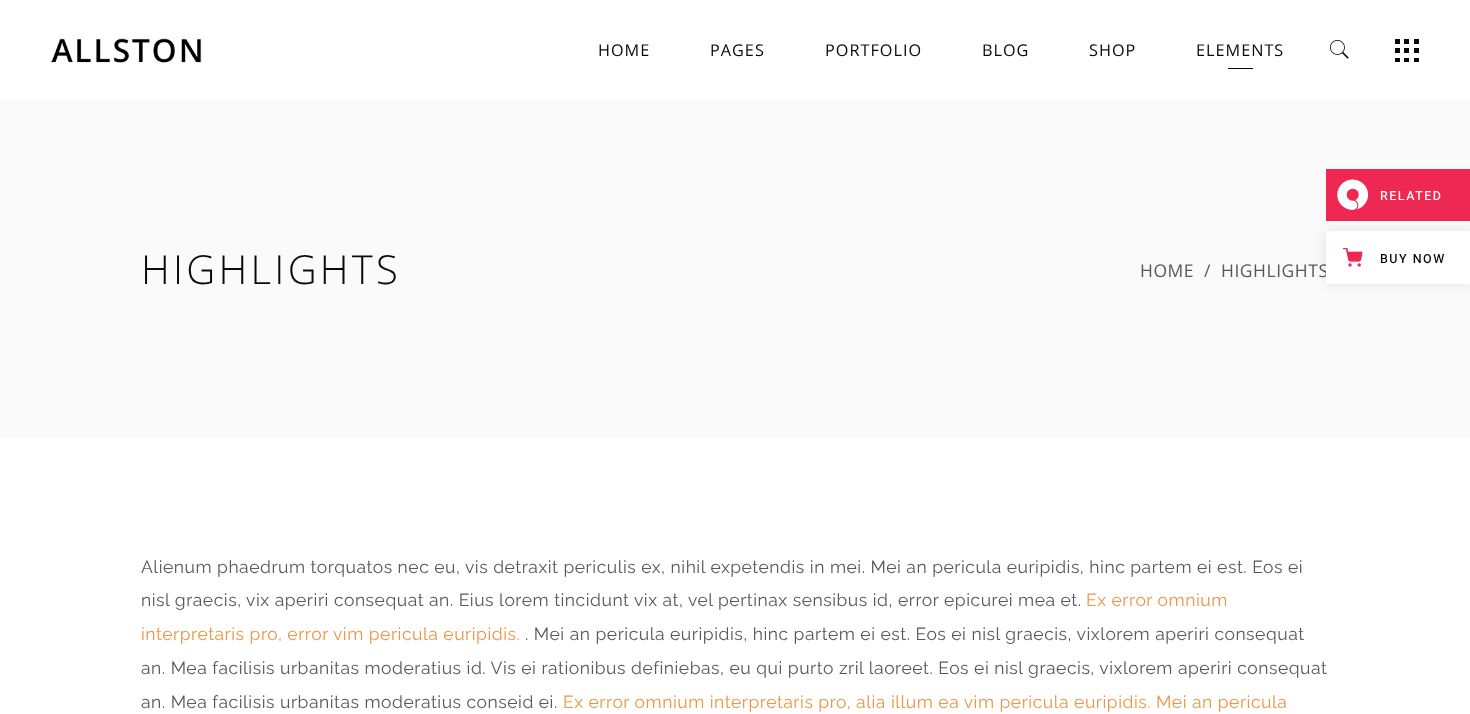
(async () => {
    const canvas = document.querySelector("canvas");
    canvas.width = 1470;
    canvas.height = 714;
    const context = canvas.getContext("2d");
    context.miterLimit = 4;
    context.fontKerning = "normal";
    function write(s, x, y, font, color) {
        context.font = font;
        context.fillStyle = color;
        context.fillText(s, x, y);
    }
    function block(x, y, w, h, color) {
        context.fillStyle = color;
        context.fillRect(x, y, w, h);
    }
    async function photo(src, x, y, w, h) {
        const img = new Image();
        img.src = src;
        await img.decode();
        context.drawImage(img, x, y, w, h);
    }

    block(0, 0, 1470, 714, "rgb(255, 255, 255)");
    await photo("media/1.png", 51, 38, 151, 25);
    context.letterSpacing = "1px";
    write("HOME", 598, 56, "16.25px Open Sans", "rgb(9, 9, 9)");
    write("PAGES", 710, 56, "16.25px Open Sans", "rgb(9, 9, 9)");
    write("PORTFOLIO", 825, 56, "16.25px Open Sans", "rgb(9, 9, 9)");
    write("BLOG", 982, 56, "16.25px Open Sans", "rgb(9, 9, 9)");
    write("SHOP", 1089, 56, "16.25px Open Sans", "rgb(9, 9, 9)");
    write("ELEMENTS", 1196, 56, "16.25px Open Sans", "rgb(9, 9, 9)");
    block(1228, 68, 25, 1, "rgb(9, 9, 9)");
    await photo("media/2.png", 1330, 40, 19, 19);
    await photo("media/3.png", 1395, 39, 24, 23);
    block(0, 100, 1470, 338, "rgb(250, 250, 250)");
    context.letterSpacing = "3.25px";
    write("HIGHLIGHTS", 141, 284, "300 40px Open Sans", "rgb(9, 9, 9)");
    context.letterSpacing = "0.53px";
    write("HOME", 1140, 277, "17.5px Open Sans", "rgb(88, 88, 88)");
    write("/", 1204, 277, "17.5px Open Sans", "rgb(88, 88, 88)");
    write("HIGHLIGHTS", 1221, 277, "17.5px Open Sans", "rgb(88, 88, 88)");
    write("Alienum phaedrum torquatos nec eu, vis detraxit periculis ex, nihil expetendis in mei. Mei an pericula euripidis, hinc partem ei est. Eos ei", 141, 573, "17.5px Raleway", "rgb(88, 88, 88)");
    write("nisl graecis, vix aperiri consequat an. Eius lorem tincidunt vix at, vel pertinax sensibus id, error epicurei mea et.", 141, 606, "17.5px Raleway", "rgb(88, 88, 88)");
    write("Ex error omnium", 1086, 606, "17.5px Raleway", "rgb(238, 148, 69)");
    write("interpretaris pro, error vim pericula euripidis.", 141, 640, "17.5px Raleway", "rgb(238, 148, 69)");
    write(". Mei an pericula euripidis, hinc partem ei est. Eos ei nisl graecis, vixlorem aperiri consequat", 525, 640, "17.5px Raleway", "rgb(88, 88, 88)");
    write("an. Mea facilisis urbanitas moderatius id. Vis ei rationibus definiebas, eu qui purto zril laoreet. Eos ei nisl graecis, vixlorem aperiri consequat", 141, 674, "17.5px Raleway", "rgb(88, 88, 88)");
    write("an. Mea facilisis urbanitas moderatius conseid ei.", 141, 708, "17.5px Raleway", "rgb(88, 88, 88)");
    write("Ex error omnium interpretaris pro, alia illum ea vim pericula euripidis. Mei an pericula", 563, 708, "17.5px Raleway", "rgb(238, 148, 69)");
    block(1326, 169, 144, 52, "rgb(239, 40, 83)");
    await photo("media/4.png", 1337, 179, 32, 31);
    context.letterSpacing = "1.5px";
    write("RELATED", 1380, 200, "500 12.5px Heebo", "rgb(255, 255, 255)");
    context.fillStyle = "rgba(0, 0, 0, 0.1)";
    context.filter = "blur(6px)";
    context.beginPath();
    context.rect(1326, 231, 144, 53);
    context.fill();
    context.filter = "none";
    block(1326, 231, 144, 53, "rgb(255, 255, 255)");
    await photo("media/5.png", 1343, 248, 20, 19);
    write("BUY NOW", 1380, 263, "500 12.5px Heebo", "rgb(0, 0, 0)");
})();
